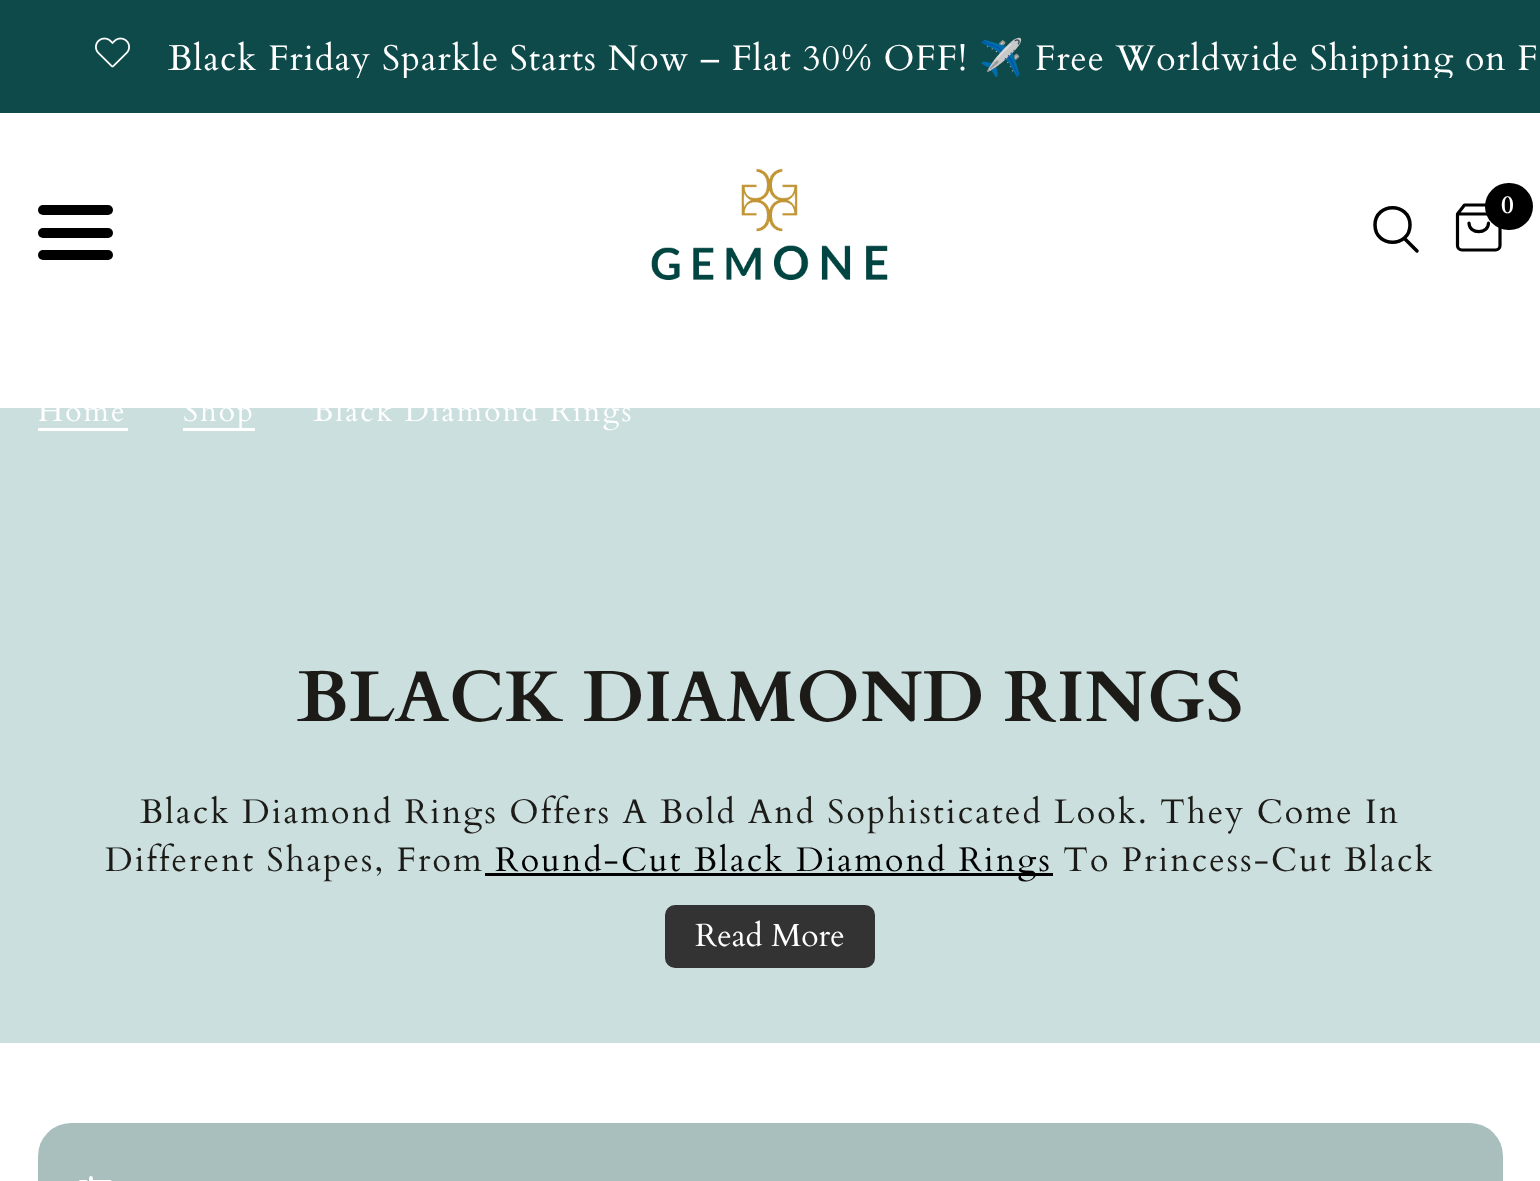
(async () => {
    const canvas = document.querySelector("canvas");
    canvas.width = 1540;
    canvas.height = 1181;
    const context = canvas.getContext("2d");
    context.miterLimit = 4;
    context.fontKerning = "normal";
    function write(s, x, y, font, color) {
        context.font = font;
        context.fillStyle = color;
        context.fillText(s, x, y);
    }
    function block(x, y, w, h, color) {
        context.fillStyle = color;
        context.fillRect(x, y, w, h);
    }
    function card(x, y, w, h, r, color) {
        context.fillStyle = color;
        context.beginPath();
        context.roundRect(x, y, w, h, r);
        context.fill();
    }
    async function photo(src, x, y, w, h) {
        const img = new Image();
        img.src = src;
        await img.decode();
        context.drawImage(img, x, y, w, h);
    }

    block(0, 0, 1540, 1181, "rgb(255, 255, 255)");
    block(0, 0, 1540, 113, "rgb(14, 74, 74)");
    await photo("media/1.png", 95, 37, 35, 31);
    context.save();
    context.beginPath();
    context.rect(0, 35, 1540, 43);
    context.clip();
    context.letterSpacing = "1.05px";
    write("Black Friday Sparkle Starts Now – Flat 30% OFF!", 168, 70, "35.75px Cardo", "rgb(255, 255, 255)");
    context.restore();
    context.letterSpacing = "1.05px";
    write("✈️", 979, 70, "35.75px Noto Color Emoji", "rgb(255, 255, 255)");
    context.save();
    context.beginPath();
    context.rect(0, 35, 1540, 43);
    context.clip();
    write("Free Worldwide Shipping on F", 1035, 70, "35.75px Cardo", "rgb(255, 255, 255)");
    context.restore();
    card(38, 205, 75, 10, 5, "rgb(0, 0, 0)");
    card(38, 228, 75, 10, 5, "rgb(0, 0, 0)");
    card(38, 250, 75, 10, 5, "rgb(0, 0, 0)");
    await photo("media/2.png", 651, 168, 237, 113);
    context.beginPath();
    context.moveTo(1405, 239);
    context.lineTo(1417, 251);
    context.moveTo(1410, 225);
    context.bezierCurveTo(1410, 248, 1375, 248, 1375, 225);
    context.bezierCurveTo(1375, 202, 1410, 202, 1410, 225);
    context.closePath();
    context.strokeStyle = "rgb(0, 0, 0)";
    context.lineWidth = 3.5;
    context.lineCap = "round";
    context.lineJoin = "round";
    context.stroke();
    context.beginPath();
    context.moveTo(1457.5, 214);
    context.lineTo(1464.5, 205);
    context.lineTo(1493, 205);
    context.lineTo(1500, 214);
    context.moveTo(1457.5, 214);
    context.lineTo(1457.5, 245.5);
    context.bezierCurveTo(1457.5, 248, 1459.5, 250, 1462, 250);
    context.lineTo(1495.5, 250);
    context.bezierCurveTo(1498, 250, 1500, 248, 1500, 245.5);
    context.lineTo(1500, 214);
    context.moveTo(1457.5, 214);
    context.lineTo(1500, 214);
    context.moveTo(1488.5, 223);
    context.bezierCurveTo(1488.5, 234.5, 1469, 234.5, 1469, 223);
    context.lineWidth = 3.2;
    context.stroke();
    card(1485, 183, 48, 47, 23.5, "rgb(0, 0, 0)");
    context.letterSpacing = "2.12px";
    write("0", 1501, 213, "bold 25px Cardo", "rgb(255, 255, 255)");
    block(0, 408, 1540, 635, "rgb(203, 223, 222)");
    write("Home", 38, 421, "30px Cardo", "rgb(255, 255, 255)");
    block(38, 428, 90, 3, "rgb(255, 255, 255)");
    block(183, 428, 72, 3, "rgb(255, 255, 255)");
    write("Shop", 183, 421, "30px Cardo", "rgb(255, 255, 255)");
    write("Black Diamond Rings", 313, 421, "30px Cardo", "rgb(255, 255, 255)");
    context.letterSpacing = "0px";
    write("BLACK DIAMOND RINGS", 297, 721, "bold 72px Cardo", "rgb(28, 27, 23)");
    context.letterSpacing = "2.12px";
    write("Black Diamond Rings Offers A Bold And Sophisticated Look. They Come In", 140, 823, "34px Cardo", "rgb(28, 27, 23)");
    write("Different Shapes, From", 105, 871, "34px Cardo", "rgb(28, 27, 23)");
    block(485, 873, 568, 3, "rgb(0, 0, 0)");
    write("Round-Cut Black Diamond Rings", 495, 871, "34px Cardo", "rgb(0, 0, 0)");
    write("To Princess-Cut Black", 1063, 871, "34px Cardo", "rgb(28, 27, 23)");
    card(665, 905, 210, 63, 10, "rgb(51, 51, 51)");
    context.letterSpacing = "0px";
    write("Read More", 695, 946, "32px Cardo", "rgb(255, 255, 255)");
    card(38, 1123, 1465, 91, 33, "rgb(168, 191, 190)");
    context.beginPath();
    context.moveTo(96.5, 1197);
    context.lineTo(80.5, 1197);
    context.moveTo(110, 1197);
    context.lineTo(102, 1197);
    context.moveTo(86, 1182);
    context.lineTo(80.5, 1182);
    context.moveTo(110, 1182);
    context.lineTo(91, 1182);
    context.moveTo(91, 1178);
    context.lineTo(91, 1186);
    context.moveTo(102, 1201);
    context.lineTo(102, 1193);
    context.strokeStyle = "rgb(255, 255, 255)";
    context.lineWidth = 3.8;
    context.stroke();
})();
